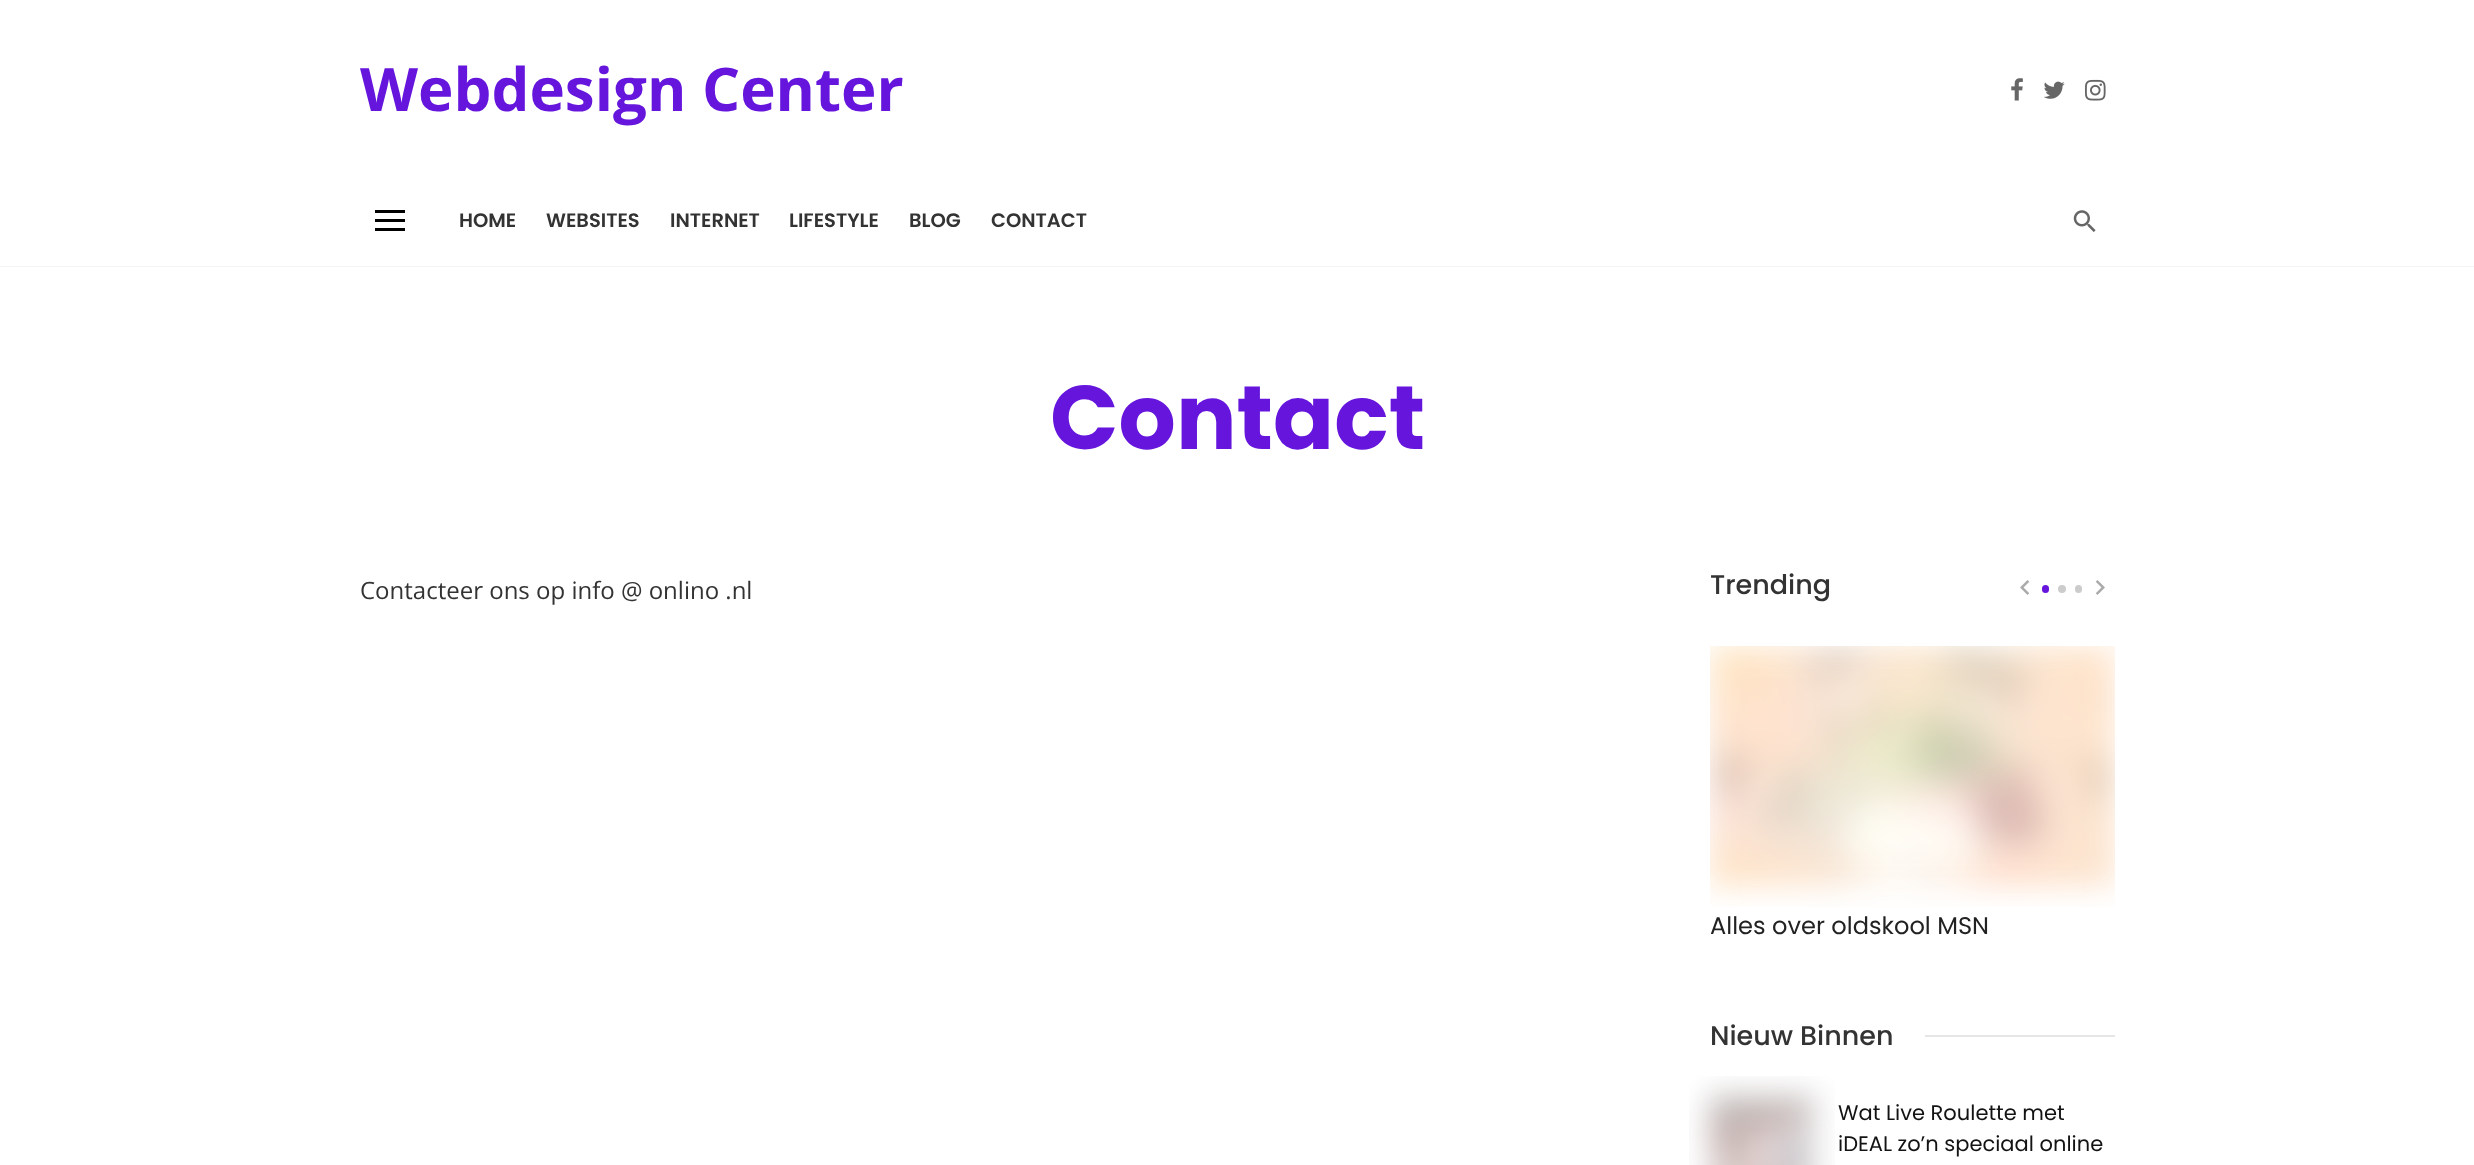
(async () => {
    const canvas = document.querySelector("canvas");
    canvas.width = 2474;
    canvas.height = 1165;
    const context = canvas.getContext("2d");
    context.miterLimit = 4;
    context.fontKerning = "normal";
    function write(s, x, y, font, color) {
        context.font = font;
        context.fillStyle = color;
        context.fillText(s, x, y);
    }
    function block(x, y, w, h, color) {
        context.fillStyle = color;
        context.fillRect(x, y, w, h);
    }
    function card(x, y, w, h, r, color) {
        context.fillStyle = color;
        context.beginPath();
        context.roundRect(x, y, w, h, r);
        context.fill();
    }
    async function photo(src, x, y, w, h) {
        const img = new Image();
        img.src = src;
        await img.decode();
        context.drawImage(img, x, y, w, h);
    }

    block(0, 0, 2474, 1165, "rgb(255, 255, 255)");
    block(0, 266, 2474, 1, "rgb(245, 245, 245)");
    write("Webdesign Center", 360, 111, "bold 60px Open Sans", "rgb(101, 21, 220)");
    await photo("media/1.png", 2011, 78, 12, 23);
    await photo("media/2.png", 2044, 81, 21, 18);
    await photo("media/3.png", 2085, 79, 21, 22);
    block(375, 219, 30, 3, "rgb(0, 0, 0)");
    block(375, 210, 30, 3, "rgb(0, 0, 0)");
    block(375, 228, 30, 3, "rgb(0, 0, 0)");
    write("HOME", 459, 227, "600 19.5px Poppins", "rgb(51, 51, 51)");
    write("WEBSITES", 546, 227, "600 19.5px Poppins", "rgb(51, 51, 51)");
    write("INTERNET", 670, 227, "600 19.5px Poppins", "rgb(51, 51, 51)");
    write("LIFESTYLE", 789, 227, "600 19.5px Poppins", "rgb(51, 51, 51)");
    write("BLOG", 909, 227, "600 19.5px Poppins", "rgb(51, 51, 51)");
    write("CONTACT", 991, 227, "600 19.5px Poppins", "rgb(51, 51, 51)");
    await photo("media/4.png", 2073, 210, 23, 22);
    write("Contact", 1050, 449, "bold 90px Poppins", "rgb(101, 21, 220)");
    write("Contacteer ons op info @ onlino .nl", 360, 599, "24px Open Sans", "rgb(51, 51, 51)");
    write("Trending", 1710, 594, "500 27px Poppins", "rgb(51, 51, 51)");
    await photo("media/5.png", 2020, 580, 10, 15);
    await photo("media/6.png", 2095, 580, 10, 15);
    card(2042, 585, 7, 8, 3.5, "rgb(101, 21, 220)");
    context.fillStyle = "rgb(204, 204, 204)";
    context.beginPath();
    context.arc(2062, 589, 4, 0, Math.PI * 2);
    context.fill();
    card(2075, 585, 7, 8, 3.5, "rgb(204, 204, 204)");
    await photo("media/7.png", 1710, 646, 405, 261);
    write("Alles over oldskool MSN", 1710, 934, "24.1px Poppins", "rgb(34, 34, 34)");
    write("Nieuw Binnen", 1710, 1045, "500 27px Poppins", "rgb(51, 51, 51)");
    block(1925, 1035, 190, 2, "rgb(230, 230, 230)");
    await photo("media/8.png", 1689, 1076, 146, 89);
    write("Wat Live Roulette met", 1838, 1120, "21px Poppins", "rgb(19, 19, 19)");
    write("iDEAL zo’n speciaal online", 1838, 1151, "21px Poppins", "rgb(19, 19, 19)");
})();
